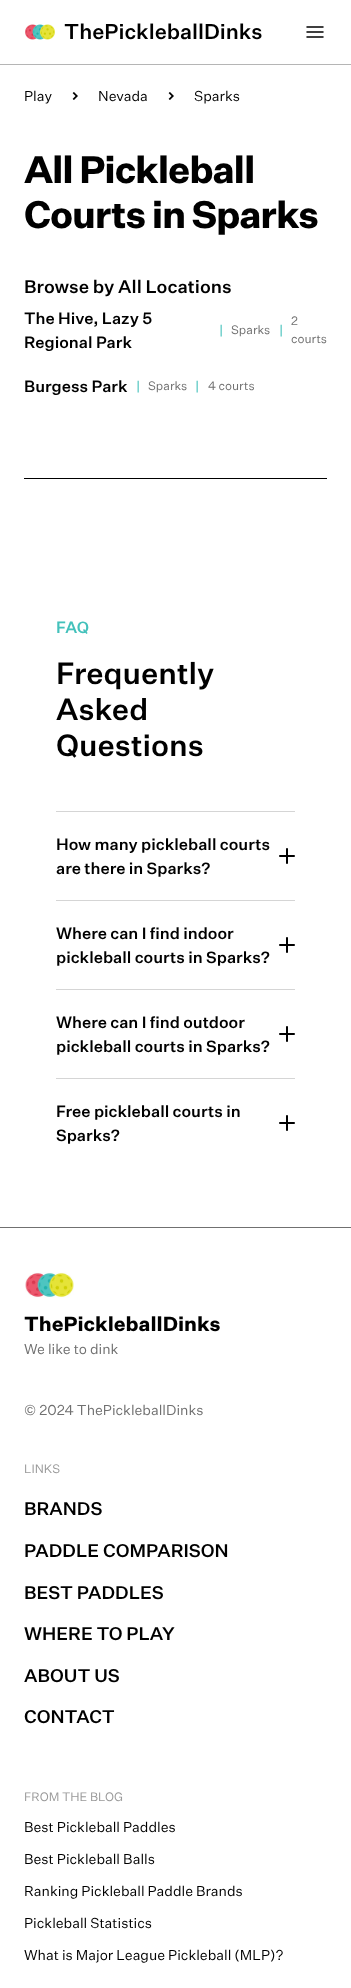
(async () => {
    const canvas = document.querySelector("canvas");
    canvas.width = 351;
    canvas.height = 1988;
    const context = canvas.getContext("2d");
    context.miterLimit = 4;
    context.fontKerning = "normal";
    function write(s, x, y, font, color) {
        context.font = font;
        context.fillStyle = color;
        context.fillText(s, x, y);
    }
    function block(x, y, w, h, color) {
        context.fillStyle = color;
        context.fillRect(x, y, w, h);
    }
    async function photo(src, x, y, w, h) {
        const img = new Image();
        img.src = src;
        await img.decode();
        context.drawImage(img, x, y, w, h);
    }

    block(0, 0, 351, 1988, "rgb(255, 255, 255)");
    block(0, 64, 351, 1, "rgb(181, 181, 181)");
    await photo("media/1.png", 25, 24, 30, 16);
    write("ThePickleballDinks", 64, 39, "500 21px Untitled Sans", "rgb(0, 0, 0)");
    context.beginPath();
    context.moveTo(307, 27);
    context.lineTo(323, 27);
    context.moveTo(307, 32);
    context.lineTo(323, 32);
    context.moveTo(307, 37);
    context.lineTo(323, 37);
    context.strokeStyle = "rgb(0, 0, 0)";
    context.lineWidth = 1.5;
    context.lineCap = "round";
    context.lineJoin = "round";
    context.stroke();
    write("Play", 24, 101, "14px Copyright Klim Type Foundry", "rgb(0, 0, 0)");
    await photo("media/2.png", 72, 92, 6, 8);
    write("Nevada", 98, 101, "14px Copyright Klim Type Foundry", "rgb(0, 0, 0)");
    await photo("media/2.png", 168, 92, 6, 8);
    write("Sparks", 194, 101, "14px Copyright Klim Type Foundry", "rgb(0, 0, 0)");
    context.letterSpacing = "-1.1px";
    write("All Pickleball", 24, 183, "bold 37.5px Copyright Klim Type Foundry", "rgb(0, 0, 0)");
    write("Courts in Sparks", 24, 228, "bold 37.5px Copyright Klim Type Foundry", "rgb(0, 0, 0)");
    context.letterSpacing = "0px";
    write("Browse by All Locations", 24, 293, "500 18px Untitled Sans", "rgb(0, 0, 0)");
    write("The Hive, Lazy 5", 24, 324, "500 16px Untitled Sans", "rgb(0, 0, 0)");
    write("Regional Park", 24, 348, "500 16px Untitled Sans", "rgb(0, 0, 0)");
    write("|", 219, 335, "14px Copyright Klim Type Foundry", "rgb(67, 193, 187)");
    write("Sparks", 231, 334, "12px Copyright Klim Type Foundry", "rgb(112, 112, 112)");
    write("|", 279, 335, "14px Copyright Klim Type Foundry", "rgb(67, 193, 187)");
    write("2", 291, 325, "12px Copyright Klim Type Foundry", "rgb(112, 112, 112)");
    write("courts", 291, 343, "12px Copyright Klim Type Foundry", "rgb(112, 112, 112)");
    write("Burgess Park", 24, 392, "500 16px Untitled Sans", "rgb(0, 0, 0)");
    write("|", 136, 391, "14px Copyright Klim Type Foundry", "rgb(67, 193, 187)");
    write("Sparks", 148, 390, "12px Copyright Klim Type Foundry", "rgb(112, 112, 112)");
    write("|", 195, 391, "14px Copyright Klim Type Foundry", "rgb(67, 193, 187)");
    write("4 courts", 208, 390, "12px Copyright Klim Type Foundry", "rgb(112, 112, 112)");
    block(24, 478, 303, 1, "rgb(0, 0, 0)");
    write("FAQ", 56, 633, "500 16px Untitled Sans", "rgb(67, 193, 187)");
    write("Frequently", 56, 684, "500 30px Untitled Sans", "rgb(0, 0, 0)");
    write("Asked", 56, 720, "500 30px Untitled Sans", "rgb(0, 0, 0)");
    write("Questions", 56, 756, "500 30px Untitled Sans", "rgb(0, 0, 0)");
    block(56, 811, 239, 1, "rgb(213, 213, 213)");
    write("How many pickleball courts", 56, 850, "500 16px Untitled Sans", "rgb(0, 0, 0)");
    write("are there in Sparks?", 56, 874, "500 16px Untitled Sans", "rgb(0, 0, 0)");
    await photo("media/3.png", 279, 848, 16, 16);
    block(56, 900, 239, 1, "rgb(213, 213, 213)");
    write("Where can I find indoor", 56, 939, "500 16px Untitled Sans", "rgb(0, 0, 0)");
    write("pickleball courts in Sparks?", 56, 963, "500 16px Untitled Sans", "rgb(0, 0, 0)");
    await photo("media/3.png", 279, 937, 16, 16);
    block(56, 989, 239, 1, "rgb(213, 213, 213)");
    write("Where can I find outdoor", 56, 1028, "500 16px Untitled Sans", "rgb(0, 0, 0)");
    write("pickleball courts in Sparks?", 56, 1052, "500 16px Untitled Sans", "rgb(0, 0, 0)");
    await photo("media/3.png", 279, 1026, 16, 16);
    block(56, 1078, 239, 1, "rgb(213, 213, 213)");
    write("Free pickleball courts in", 56, 1117, "500 16px Untitled Sans", "rgb(0, 0, 0)");
    write("Sparks?", 56, 1141, "500 16px Untitled Sans", "rgb(0, 0, 0)");
    await photo("media/3.png", 279, 1115, 16, 16);
    block(0, 1227, 351, 1, "rgb(112, 112, 112)");
    await photo("media/4.png", 25, 1272, 49, 26);
    write("ThePickleballDinks", 24, 1331, "bold 20px Copyright Klim Type Foundry", "rgb(0, 0, 0)");
    write("We like to dink", 24, 1354, "14px Copyright Klim Type Foundry", "rgb(112, 112, 112)");
    write("© 2024 ThePickleballDinks", 24, 1415, "14px Copyright Klim Type Foundry", "rgb(112, 112, 112)");
    write("LINKS", 24, 1473, "12px Copyright Klim Type Foundry", "rgb(153, 153, 153)");
    write("BRANDS", 24, 1515, "500 18px Untitled Sans", "rgb(0, 0, 0)");
    write("PADDLE COMPARISON", 24, 1557, "500 18px Untitled Sans", "rgb(0, 0, 0)");
    write("BEST PADDLES", 24, 1599, "500 18px Untitled Sans", "rgb(0, 0, 0)");
    write("WHERE TO PLAY", 24, 1640, "500 18px Untitled Sans", "rgb(0, 0, 0)");
    write("ABOUT US", 24, 1682, "500 18px Untitled Sans", "rgb(0, 0, 0)");
    write("CONTACT", 24, 1723, "500 18px Untitled Sans", "rgb(0, 0, 0)");
    write("FROM THE BLOG", 24, 1801, "12px Copyright Klim Type Foundry", "rgb(153, 153, 153)");
    write("Best Pickleball Paddles", 24, 1832, "14px Copyright Klim Type Foundry", "rgb(0, 0, 0)");
    write("Best Pickleball Balls", 24, 1864, "14px Copyright Klim Type Foundry", "rgb(0, 0, 0)");
    write("Ranking Pickleball Paddle Brands", 24, 1896, "14px Copyright Klim Type Foundry", "rgb(0, 0, 0)");
    write("Pickleball Statistics", 24, 1928, "14px Copyright Klim Type Foundry", "rgb(0, 0, 0)");
    write("What is Major League Pickleball (MLP)?", 24, 1960, "14px Copyright Klim Type Foundry", "rgb(0, 0, 0)");
})();
